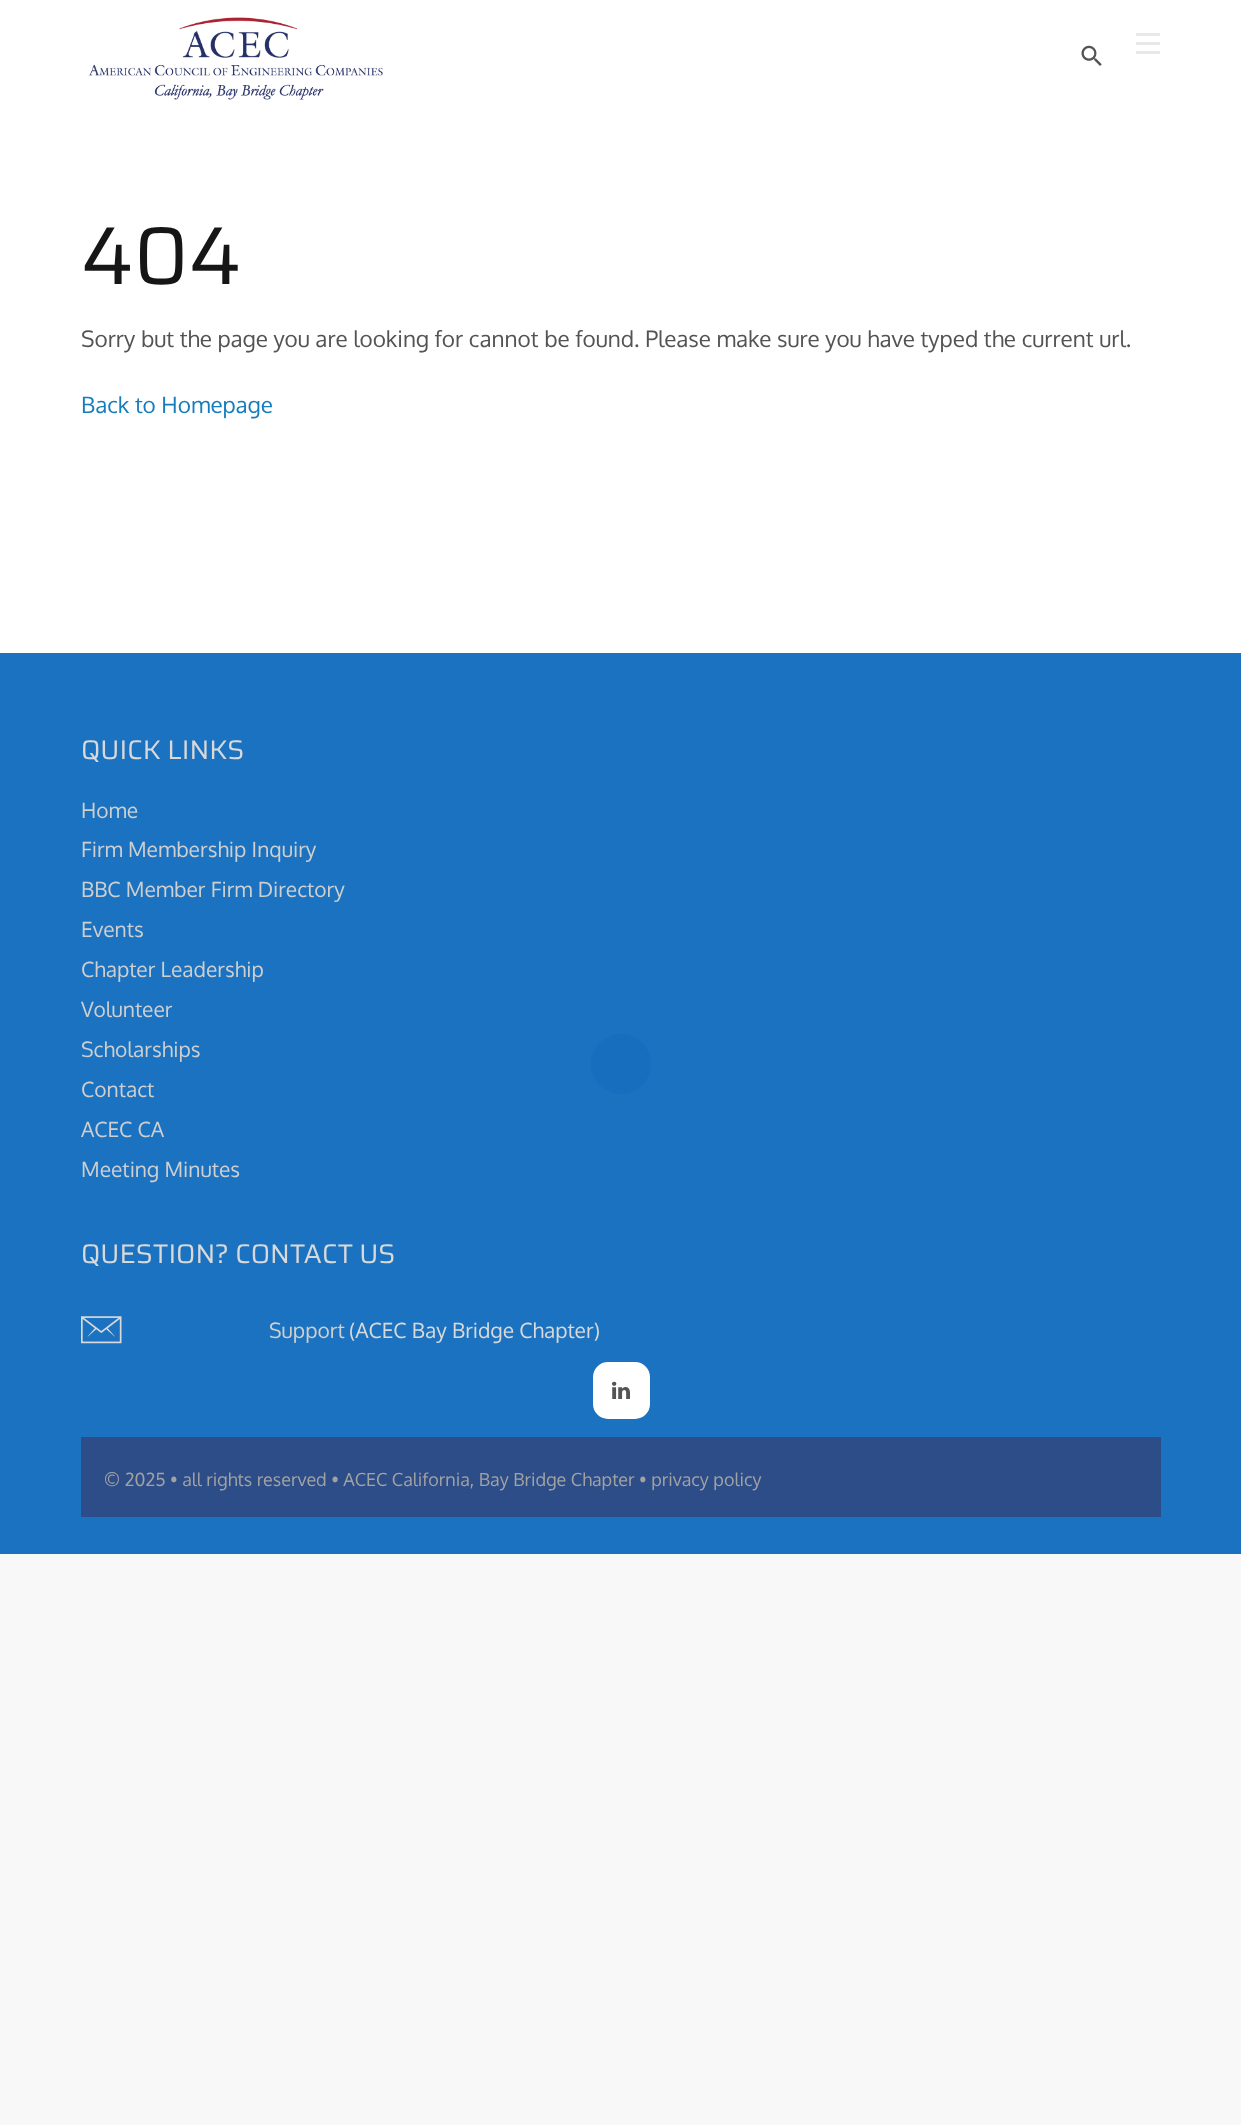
(async () => {
    const canvas = document.querySelector("canvas");
    canvas.width = 1241;
    canvas.height = 2125;
    const context = canvas.getContext("2d");
    context.miterLimit = 4;
    context.fontKerning = "normal";
    function write(s, x, y, font, color) {
        context.font = font;
        context.fillStyle = color;
        context.fillText(s, x, y);
    }
    function block(x, y, w, h, color) {
        context.fillStyle = color;
        context.fillRect(x, y, w, h);
    }
    async function photo(src, x, y, w, h) {
        const img = new Image();
        img.src = src;
        await img.decode();
        context.drawImage(img, x, y, w, h);
    }

    block(0, 0, 1241, 2125, "rgb(248, 248, 248)");
    block(0, 0, 1241, 653, "rgb(255, 255, 255)");
    await photo("media/1.png", 88, 17, 295, 83);
    await photo("media/2.png", 1081, 45, 21, 21);
    block(1136, 33, 24, 3, "rgb(232, 232, 232)");
    block(1136, 42, 24, 3, "rgb(232, 232, 232)");
    block(1136, 51, 24, 3, "rgb(232, 232, 232)");
    write("404", 81, 284, "82px Saira", "rgb(22, 22, 22)");
    write("Sorry but the page you are looking for cannot be found. Please make sure you have typed the current url.", 81, 347, "22.5px Oxygen", "rgb(83, 83, 83)");
    write("Back to Homepage", 81, 413, "22.5px Oxygen", "rgb(22, 125, 189)");
    block(0, 653, 1241, 901, "rgb(26, 114, 192)");
    write("QUICK LINKS", 81, 759, "27px Saira", "rgb(217, 217, 217)");
    write("Home", 81, 818, "21px Oxygen", "rgb(207, 207, 207)");
    write("Firm Membership Inquiry", 81, 857, "21px Oxygen", "rgb(207, 207, 207)");
    write("BBC Member Firm Directory", 81, 897, "21px Oxygen", "rgb(207, 207, 207)");
    write("Events", 81, 937, "21px Oxygen", "rgb(207, 207, 207)");
    write("Chapter Leadership", 81, 977, "21px Oxygen", "rgb(207, 207, 207)");
    write("Volunteer", 81, 1017, "21px Oxygen", "rgb(207, 207, 207)");
    write("Scholarships", 81, 1057, "21px Oxygen", "rgb(207, 207, 207)");
    write("Contact", 81, 1097, "21px Oxygen", "rgb(207, 207, 207)");
    write("ACEC CA", 81, 1137, "21px Oxygen", "rgb(207, 207, 207)");
    write("Meeting Minutes", 81, 1177, "21px Oxygen", "rgb(207, 207, 207)");
    write("QUESTION? CONTACT US", 81, 1263, "27px Saira", "rgb(217, 217, 217)");
    await photo("media/3.png", 81, 1316, 41, 28);
    write("Support", 269, 1338, "21px Oxygen", "rgb(207, 207, 207)");
    write("(ACEC Bay Bridge Chapter)", 349, 1338, "21px Oxygen", "rgb(217, 217, 217)");
    context.fillStyle = "rgb(255, 255, 255)";
    context.beginPath();
    context.roundRect(597, 1366, 49, 49, 11);
    context.fill();
    context.strokeStyle = "rgb(255, 255, 255)";
    context.lineWidth = 8;
    context.stroke();
    await photo("media/4.png", 612, 1381, 18, 18);
    block(81, 1437, 1080, 80, "rgb(45, 77, 136)");
    write("© 2025 • all rights reserved • ACEC California, Bay Bridge Chapter • privacy policy", 104, 1486, "18px Oxygen", "rgb(162, 162, 162)");
    context.fillStyle = "rgb(23, 110, 190)";
    context.beginPath();
    context.arc(621, 1064, 30, 0, Math.PI * 2);
    context.fill();
})();
